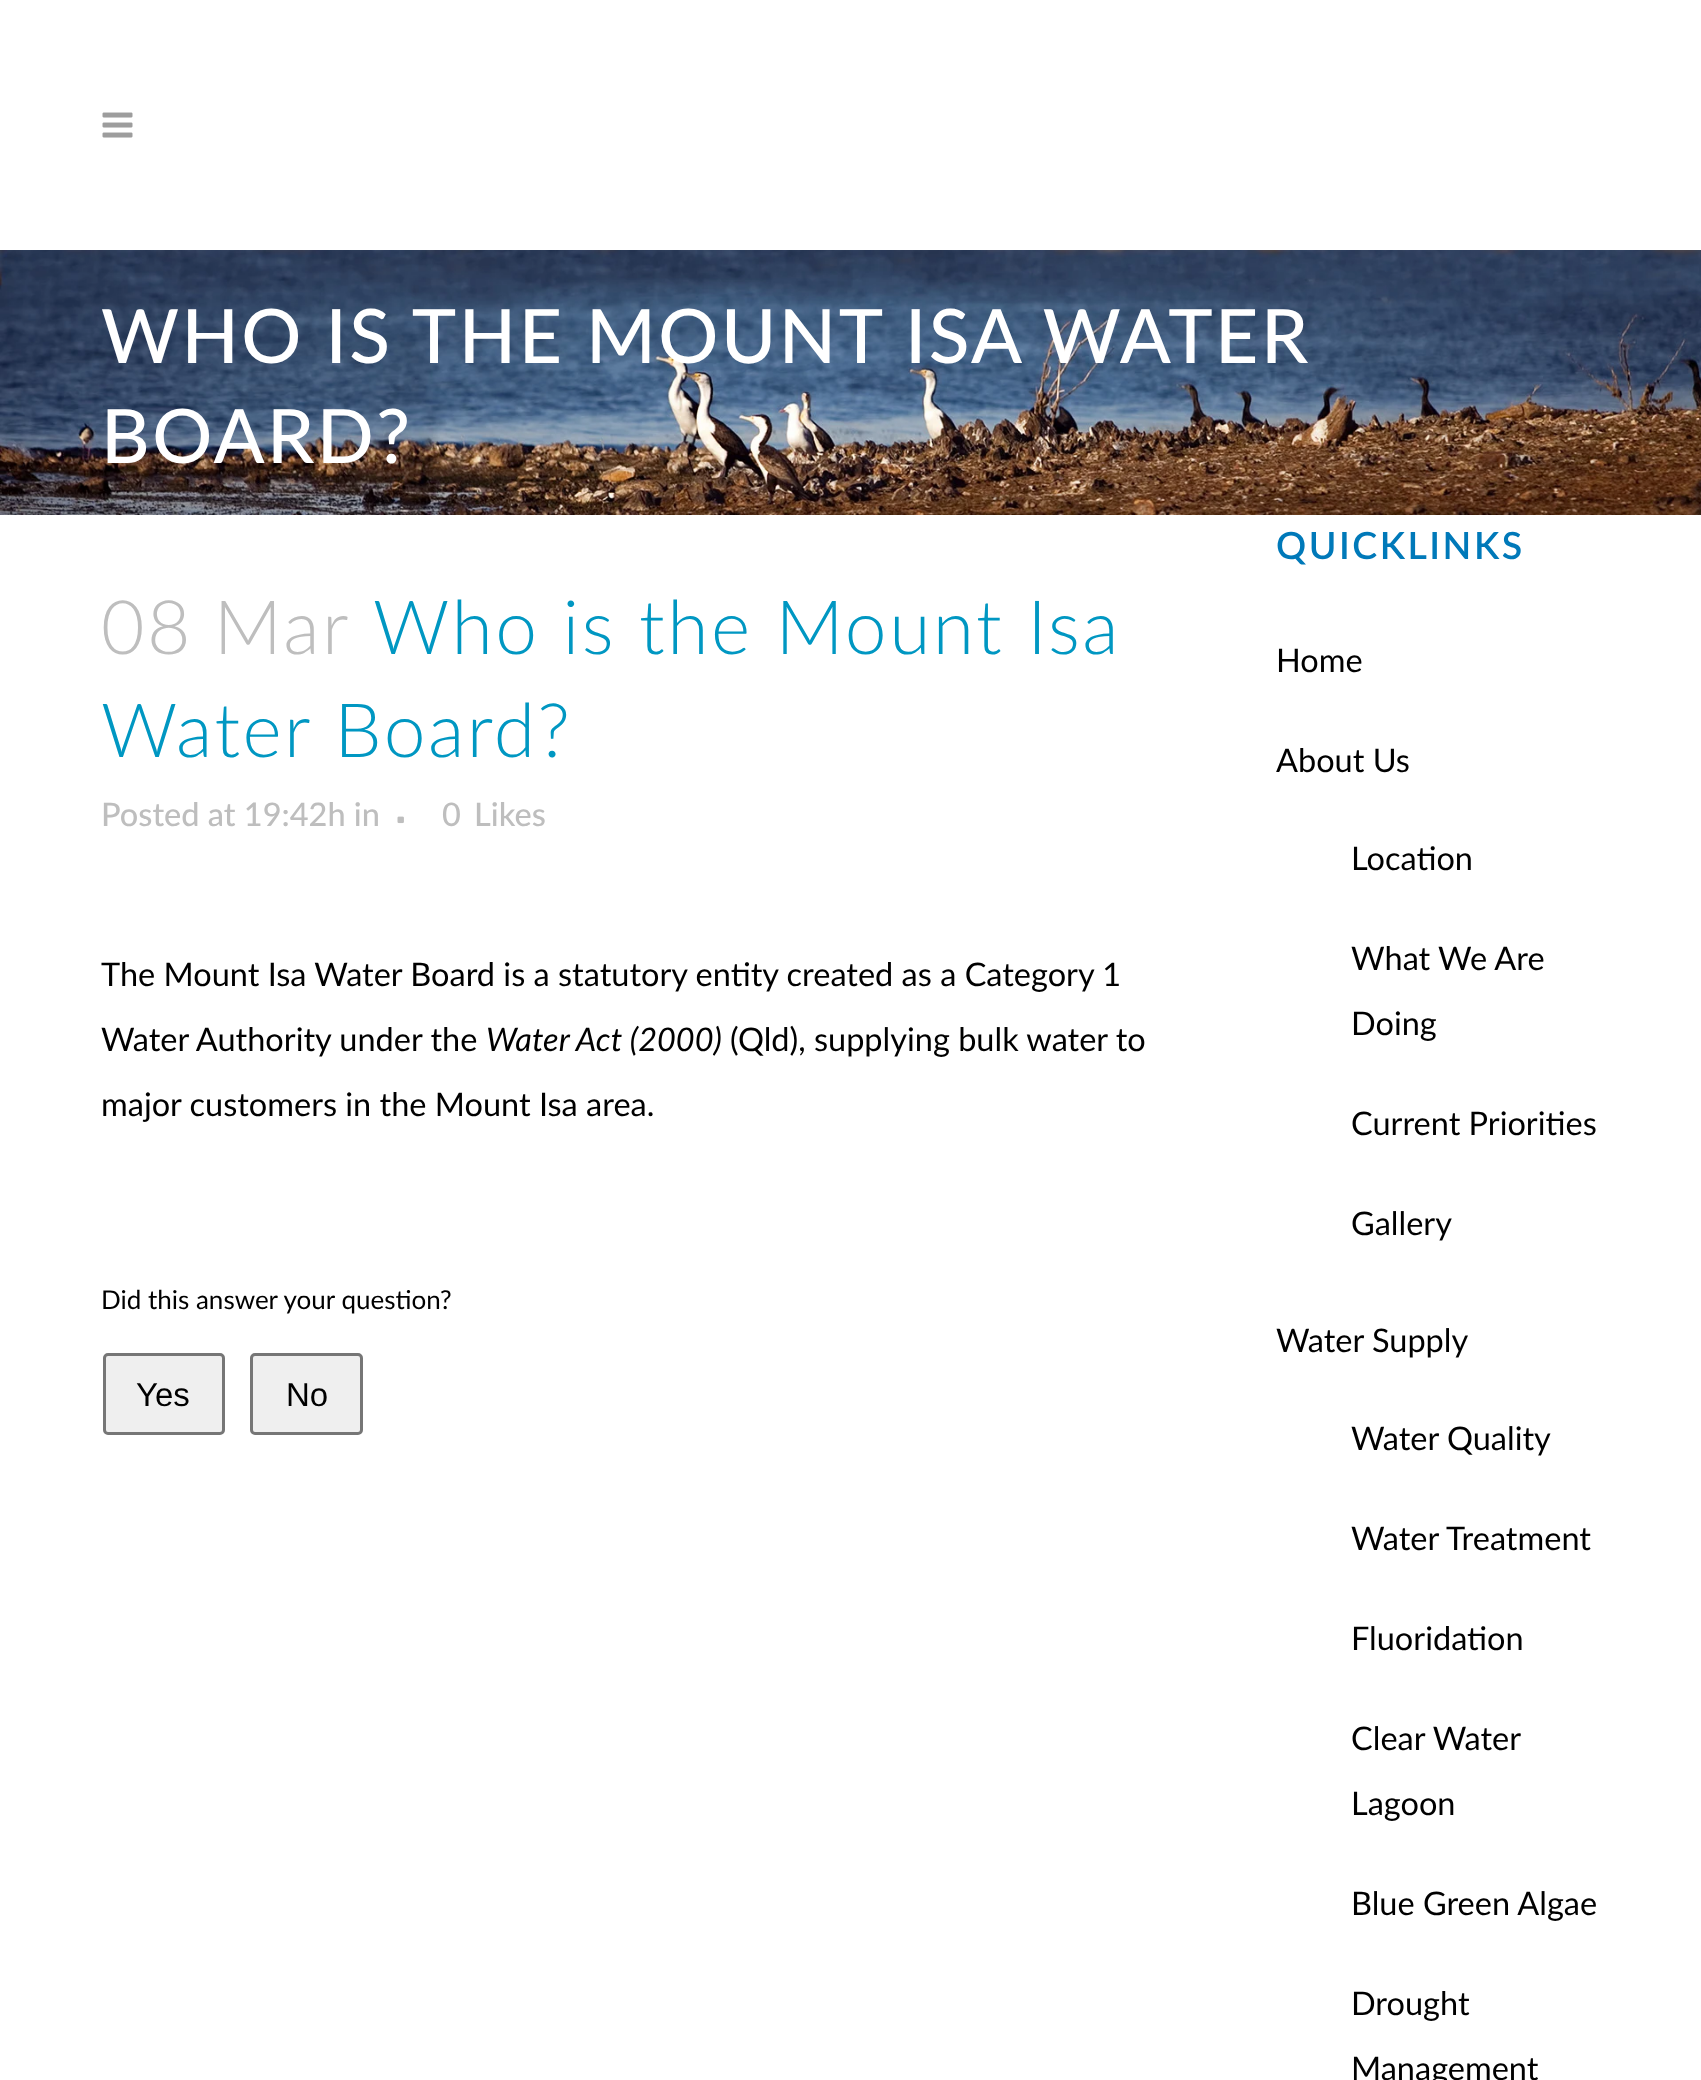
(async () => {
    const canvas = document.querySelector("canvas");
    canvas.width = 1701;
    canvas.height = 2080;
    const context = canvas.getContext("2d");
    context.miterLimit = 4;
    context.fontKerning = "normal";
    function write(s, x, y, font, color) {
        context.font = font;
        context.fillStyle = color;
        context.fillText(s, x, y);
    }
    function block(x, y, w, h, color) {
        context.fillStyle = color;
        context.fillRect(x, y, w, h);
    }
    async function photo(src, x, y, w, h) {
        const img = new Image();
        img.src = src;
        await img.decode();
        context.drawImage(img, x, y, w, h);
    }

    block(0, 0, 1701, 2080, "rgb(255, 255, 255)");
    await photo("media/1.png", 102, 112, 31, 26);
    await photo("media/2.png", 0, 250, 1701, 265);
    context.letterSpacing = "2.5px";
    write("WHO IS THE MOUNT ISA WATER", 101, 363, "500 75px Lato", "rgb(255, 255, 255)");
    write("BOARD?", 101, 463, "500 75px Lato", "rgb(255, 255, 255)");
    context.wordSpacing = "-2px";
    write("08 Mar", 101, 654, "300 75px Lato", "rgb(190, 190, 190)");
    context.wordSpacing = "0px";
    write("Who is the Mount Isa", 373, 654, "300 75px Lato", "rgb(0, 151, 194)");
    write("Water Board?", 101, 757, "300 75px Lato", "rgb(0, 151, 194)");
    context.letterSpacing = "0px";
    write("Posted at 19:42h in", 101, 826, "500 32.5px Lato", "rgb(190, 190, 190)");
    await photo("media/3.png", 397, 816, 7, 8);
    write("0", 442, 826, "500 32.5px Lato", "rgb(190, 190, 190)");
    write("Likes", 474, 826, "500 32.5px Lato", "rgb(190, 190, 190)");
    write("The Mount Isa Water Board is a statutory entity created as a Category 1", 101, 986, "32.5px Lato", "rgb(0, 0, 0)");
    write("Water Authority under the", 101, 1051, "32.5px Lato", "rgb(0, 0, 0)");
    write("Water Act (2000)", 486, 1051, "italic 32.5px Lato", "rgb(0, 0, 0)");
    write("(Qld), supplying bulk water to", 730, 1051, "32.5px Lato", "rgb(0, 0, 0)");
    write("major customers in the Mount Isa area.", 101, 1116, "32.5px Lato", "rgb(0, 0, 0)");
    write("Did this answer your question?", 101, 1309, "26px Lato", "rgb(0, 0, 0)");
    context.fillStyle = "rgb(239, 239, 239)";
    context.beginPath();
    context.roundRect(104.5, 1354.5, 119, 79, 3.5);
    context.fill();
    context.strokeStyle = "rgb(118, 118, 118)";
    context.lineWidth = 3;
    context.stroke();
    write("Yes", 136, 1406, "33px Liberation Sans", "rgb(0, 0, 0)");
    context.fillStyle = "rgb(239, 239, 239)";
    context.beginPath();
    context.roundRect(251.5, 1354.5, 110, 79, 3.5);
    context.fill();
    context.stroke();
    write("No", 286, 1406, "33px Liberation Sans", "rgb(0, 0, 0)");
    context.letterSpacing = "2.5px";
    write("QUICKLINKS", 1276, 559, "600 37.5px Lato", "rgb(0, 121, 185)");
    context.letterSpacing = "0px";
    write("Home", 1276, 672, "32.5px Lato", "rgb(0, 0, 0)");
    write("About Us", 1276, 772, "32.5px Lato", "rgb(0, 0, 0)");
    write("Location", 1351, 870, "32.5px Lato", "rgb(0, 0, 0)");
    write("What We Are", 1351, 970, "32.5px Lato", "rgb(0, 0, 0)");
    write("Doing", 1351, 1035, "32.5px Lato", "rgb(0, 0, 0)");
    write("Current Priorities", 1351, 1135, "32.5px Lato", "rgb(0, 0, 0)");
    write("Gallery", 1351, 1235, "32.5px Lato", "rgb(0, 0, 0)");
    write("Water Supply", 1276, 1352, "32.5px Lato", "rgb(0, 0, 0)");
    write("Water Quality", 1351, 1450, "32.5px Lato", "rgb(0, 0, 0)");
    write("Water Treatment", 1351, 1550, "32.5px Lato", "rgb(0, 0, 0)");
    write("Fluoridation", 1351, 1650, "32.5px Lato", "rgb(0, 0, 0)");
    write("Clear Water", 1351, 1750, "32.5px Lato", "rgb(0, 0, 0)");
    write("Lagoon", 1351, 1815, "32.5px Lato", "rgb(0, 0, 0)");
    write("Blue Green Algae", 1351, 1915, "32.5px Lato", "rgb(0, 0, 0)");
    write("Drought", 1351, 2015, "32.5px Lato", "rgb(0, 0, 0)");
    write("Management", 1351, 2080, "32.5px Lato", "rgb(0, 0, 0)");
})();
